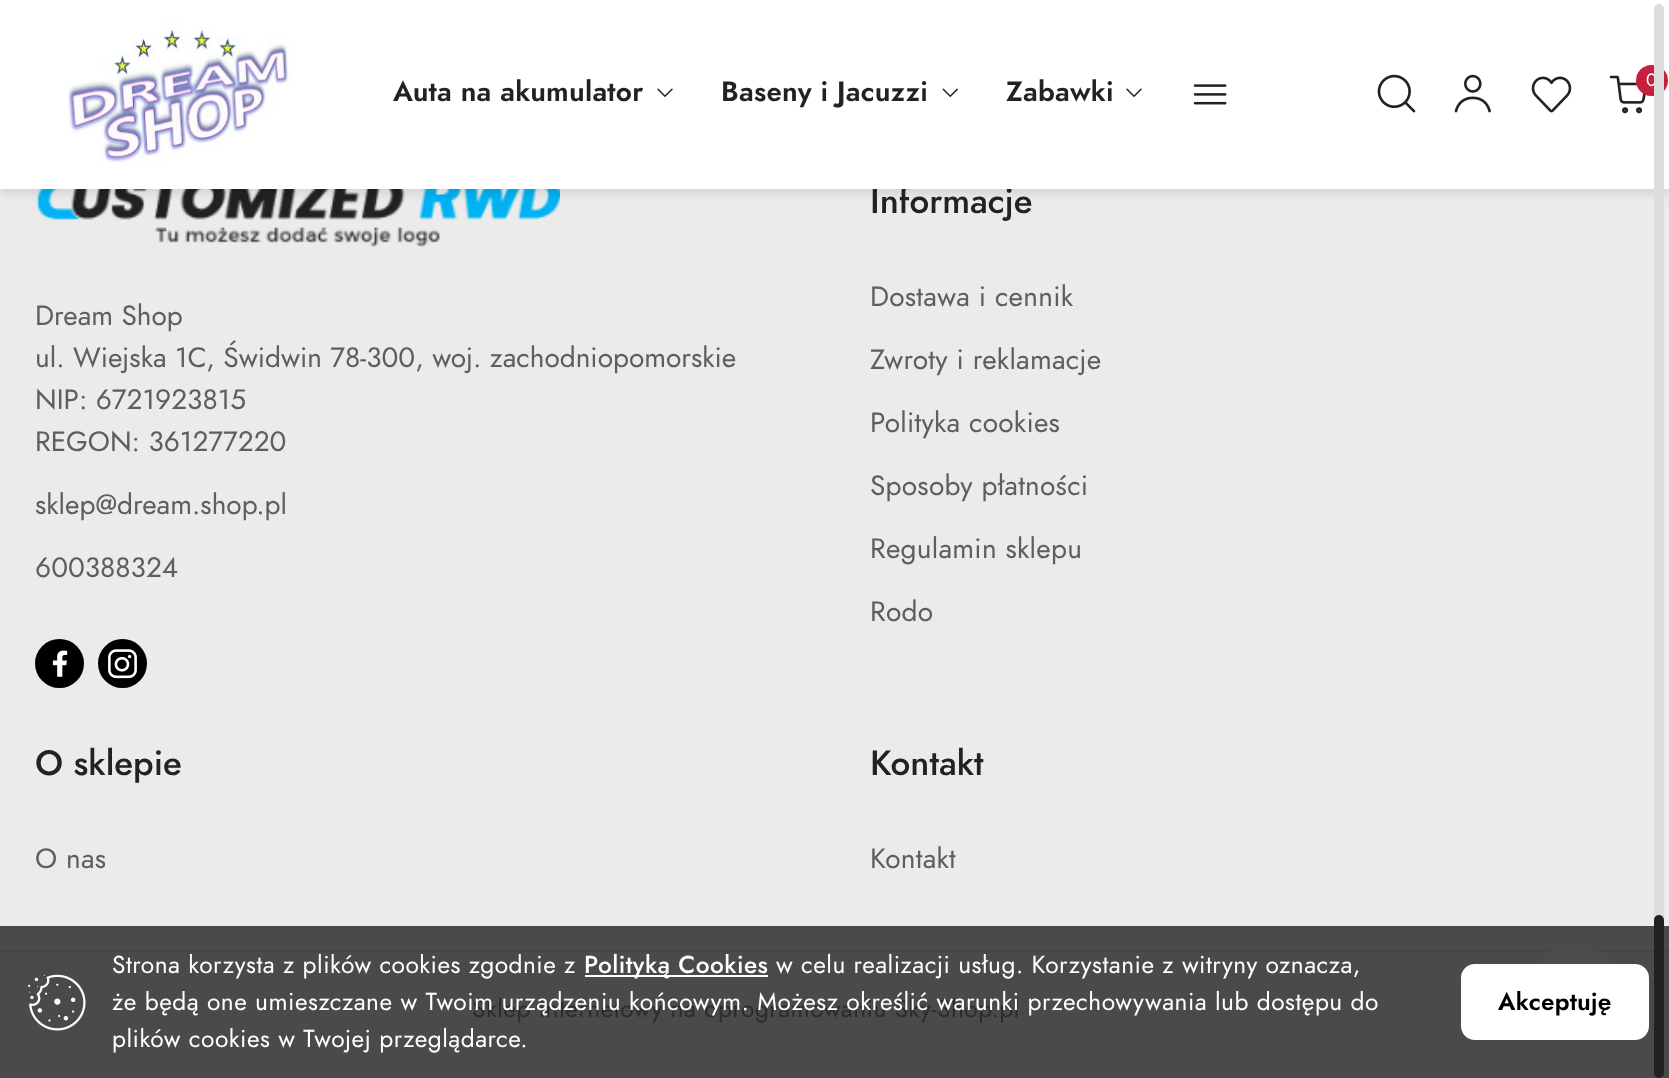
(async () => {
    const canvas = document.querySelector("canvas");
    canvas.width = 1669;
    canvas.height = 1078;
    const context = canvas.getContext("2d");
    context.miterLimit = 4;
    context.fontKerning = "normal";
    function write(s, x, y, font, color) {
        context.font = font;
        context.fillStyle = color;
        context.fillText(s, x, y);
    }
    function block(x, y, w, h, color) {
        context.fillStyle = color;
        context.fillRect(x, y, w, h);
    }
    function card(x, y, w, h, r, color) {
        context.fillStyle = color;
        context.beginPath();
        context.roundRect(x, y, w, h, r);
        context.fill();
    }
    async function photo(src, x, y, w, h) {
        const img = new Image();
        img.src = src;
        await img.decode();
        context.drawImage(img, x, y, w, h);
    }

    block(0, 0, 1669, 1078, "rgb(235, 235, 235)");
    await photo("media/9.png", 36, 189, 524, 58);
    context.fillStyle = "rgba(0, 0, 0, 0.09)";
    context.filter = "blur(4.5px)";
    context.beginPath();
    context.rect(0, 5, 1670, 189);
    context.fill();
    context.filter = "none";
    write("Informacje", 870, 213, "500 35px Jost", "rgb(34, 34, 34)");
    block(0, 0, 1669, 189, "rgb(255, 255, 255)");
    await photo("media/1.png", 68, 21, 223, 143);
    context.letterSpacing = "0.25px";
    write("Auta na akumulator", 393, 101, "600 28px Jost", "rgb(34, 34, 34)");
    await photo("media/2.png", 657, 88, 16, 9);
    write("Baseny i Jacuzzi", 721, 101, "600 28px Jost", "rgb(34, 34, 34)");
    await photo("media/3.png", 942, 88, 16, 9);
    write("Zabawki", 1006, 101, "600 28px Jost", "rgb(34, 34, 34)");
    await photo("media/2.png", 1126, 88, 16, 9);
    await photo("media/4.png", 1193, 84, 34, 21);
    await photo("media/5.png", 1377, 74, 39, 39);
    await photo("media/6.png", 1454, 74, 37, 39);
    await photo("media/7.png", 1531, 76, 41, 37);
    await photo("media/8.png", 1609, 75, 37, 39);
    card(1636, 65, 32, 31, 15.5, "rgb(197, 32, 61)");
    context.letterSpacing = "0px";
    write("0", 1646, 86, "18px Jost", "rgb(255, 255, 255)");
    block(0, 926, 1669, 152, "rgb(74, 74, 74)");
    write("Dream Shop", 35, 325, "28px Jost", "rgb(94, 94, 94)");
    write("ul. Wiejska 1C, Świdwin 78-300, woj. zachodniopomorskie", 35, 367, "28px Jost", "rgb(94, 94, 94)");
    write("NIP: 6721923815", 35, 409, "28px Jost", "rgb(94, 94, 94)");
    write("REGON: 361277220", 35, 451, "28px Jost", "rgb(94, 94, 94)");
    write("sklep@dream.shop.pl", 35, 514, "28px Jost", "rgb(94, 94, 94)");
    write("600388324", 35, 577, "28px Jost", "rgb(94, 94, 94)");
    context.fillStyle = "rgb(0, 0, 0)";
    context.beginPath();
    context.arc(59.5, 663.5, 24.5, 0, Math.PI * 2);
    context.fill();
    await photo("media/10.png", 52, 650, 16, 27);
    context.beginPath();
    context.arc(122.5, 663.5, 24.5, 0, Math.PI * 2);
    context.fill();
    await photo("media/11.png", 108, 649, 29, 30);
    context.letterSpacing = "0.25px";
    write("Dostawa i cennik", 870, 306, "28px Jost", "rgb(94, 94, 94)");
    write("Zwroty i reklamacje", 870, 369, "28px Jost", "rgb(94, 94, 94)");
    write("Polityka cookies", 870, 432, "28px Jost", "rgb(94, 94, 94)");
    write("Sposoby płatności", 870, 495, "28px Jost", "rgb(94, 94, 94)");
    write("Regulamin sklepu", 870, 558, "28px Jost", "rgb(94, 94, 94)");
    write("Rodo", 870, 621, "28px Jost", "rgb(94, 94, 94)");
    context.letterSpacing = "0px";
    write("O sklepie", 35, 775, "500 35px Jost", "rgb(34, 34, 34)");
    context.letterSpacing = "0.25px";
    write("O nas", 35, 868, "28px Jost", "rgb(94, 94, 94)");
    context.letterSpacing = "0px";
    write("Kontakt", 870, 775, "500 35px Jost", "rgb(34, 34, 34)");
    context.letterSpacing = "0.25px";
    write("Kontakt", 870, 868, "28px Jost", "rgb(94, 94, 94)");
    block(0, 950, 1669, 2, "rgb(68, 68, 68)");
    context.letterSpacing = "0.49px";
    write("Sklep internetowy na oprogramowaniu Sky-Shop.pl", 472, 1017, "24.5px Jost", "rgb(44, 44, 44)");
    context.fillStyle = "rgba(78, 78, 78, 0.6)";
    context.beginPath();
    context.arc(1575, 984, 42, 0, Math.PI * 2);
    context.fill();
    card(1654, 4, 10, 1071, 5, "rgb(221, 221, 221)");
    card(1654, 915, 10, 163, 5, "rgb(34, 34, 34)");
    await photo("media/12.png", 28, 974, 58, 57);
    write("Strona korzysta z plików cookies zgodnie z", 112, 973, "24.5px Jost", "rgb(255, 255, 255)");
    block(585, 975, 183, 2, "rgb(255, 255, 255)");
    write("Polityką Cookies", 584, 973, "500 24.5px Jost", "rgb(255, 255, 255)");
    write("w celu realizacji usług. Korzystanie z witryny oznacza,", 776, 973, "24.5px Jost", "rgb(255, 255, 255)");
    write("że będą one umieszczane w Twoim urządzeniu końcowym. Możesz określić warunki przechowywania lub dostępu do", 112, 1010, "24.5px Jost", "rgb(255, 255, 255)");
    write("plików cookies w Twojej przeglądarce.", 112, 1047, "24.5px Jost", "rgb(255, 255, 255)");
    context.beginPath();
    context.roundRect(1462, 965, 186, 74, 13);
    context.fill();
    context.strokeStyle = "rgb(255, 255, 255)";
    context.lineWidth = 2;
    context.stroke();
    context.letterSpacing = "0.25px";
    write("Akceptuję", 1498, 1010, "600 24.5px Jost", "rgb(0, 0, 0)");
})();
